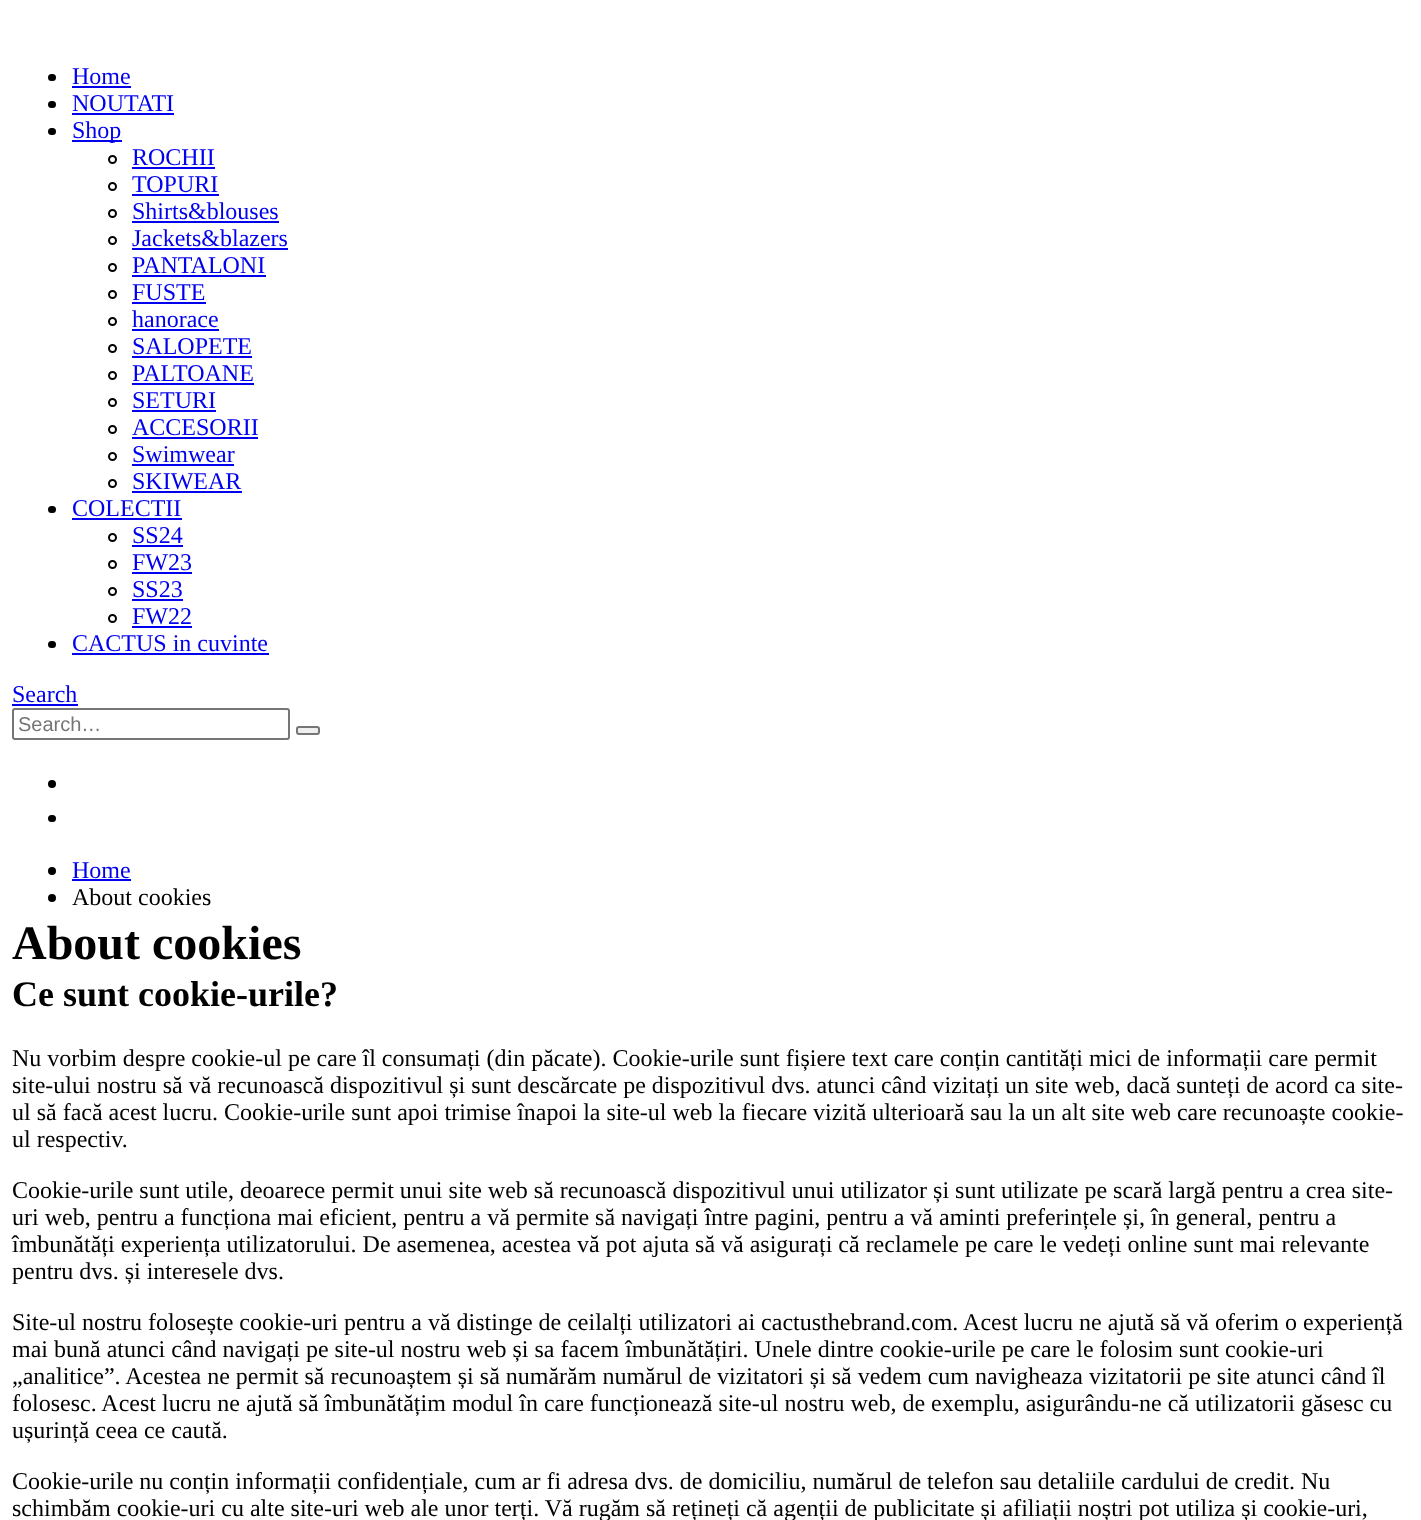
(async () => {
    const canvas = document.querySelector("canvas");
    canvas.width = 1421;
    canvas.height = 1520;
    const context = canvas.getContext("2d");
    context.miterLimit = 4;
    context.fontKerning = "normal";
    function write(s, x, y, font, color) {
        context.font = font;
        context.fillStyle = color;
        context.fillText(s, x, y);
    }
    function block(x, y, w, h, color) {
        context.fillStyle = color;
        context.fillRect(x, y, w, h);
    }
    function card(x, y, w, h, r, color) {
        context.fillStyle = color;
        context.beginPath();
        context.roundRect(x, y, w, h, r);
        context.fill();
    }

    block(0, 0, 1421, 1520, "rgb(255, 255, 255)");
    card(48, 74, 8, 7, 3.5, "rgb(0, 0, 0)");
    write("Home", 72, 84, "24px Liberation Serif", "rgb(0, 0, 238)");
    block(72, 86, 59, 2, "rgb(0, 0, 238)");
    card(48, 101, 8, 7, 3.5, "rgb(0, 0, 0)");
    write("NOUTATI", 72, 111, "24px Liberation Serif", "rgb(0, 0, 238)");
    block(72, 113, 102, 2, "rgb(0, 0, 238)");
    card(48, 128, 8, 7, 3.5, "rgb(0, 0, 0)");
    block(72, 140, 50, 2, "rgb(0, 0, 238)");
    write("Shop", 72, 138, "24px Liberation Serif", "rgb(0, 0, 238)");
    context.beginPath();
    context.arc(112.5, 159.5, 3.5, 0, Math.PI * 2);
    context.strokeStyle = "rgb(0, 0, 0)";
    context.lineWidth = 2;
    context.stroke();
    write("ROCHII", 132, 165, "24px Liberation Serif", "rgb(0, 0, 238)");
    block(132, 167, 83, 2, "rgb(0, 0, 238)");
    context.beginPath();
    context.arc(112.5, 186.5, 3.5, 0, Math.PI * 2);
    context.stroke();
    write("TOPURI", 132, 192, "24px Liberation Serif", "rgb(0, 0, 238)");
    block(132, 194, 87, 2, "rgb(0, 0, 238)");
    context.beginPath();
    context.arc(112.5, 213.5, 3.5, 0, Math.PI * 2);
    context.stroke();
    write("Shirts&blouses", 132, 219, "24px Liberation Serif", "rgb(0, 0, 238)");
    block(132, 221, 147, 2, "rgb(0, 0, 238)");
    context.beginPath();
    context.arc(112.5, 240.5, 3.5, 0, Math.PI * 2);
    context.stroke();
    write("Jackets&blazers", 132, 246, "24px Liberation Serif", "rgb(0, 0, 238)");
    block(132, 248, 156, 2, "rgb(0, 0, 238)");
    context.beginPath();
    context.arc(112.5, 267.5, 3.5, 0, Math.PI * 2);
    context.stroke();
    write("PANTALONI", 132, 273, "24px Liberation Serif", "rgb(0, 0, 238)");
    block(132, 275, 134, 2, "rgb(0, 0, 238)");
    context.beginPath();
    context.arc(112.5, 294.5, 3.5, 0, Math.PI * 2);
    context.stroke();
    write("FUSTE", 132, 300, "24px Liberation Serif", "rgb(0, 0, 238)");
    block(132, 302, 74, 2, "rgb(0, 0, 238)");
    context.beginPath();
    context.arc(112.5, 321.5, 3.5, 0, Math.PI * 2);
    context.stroke();
    write("hanorace", 132, 327, "24px Liberation Serif", "rgb(0, 0, 238)");
    block(132, 329, 87, 2, "rgb(0, 0, 238)");
    context.beginPath();
    context.arc(112.5, 348.5, 3.5, 0, Math.PI * 2);
    context.stroke();
    write("SALOPETE", 132, 354, "24px Liberation Serif", "rgb(0, 0, 238)");
    block(132, 356, 120, 2, "rgb(0, 0, 238)");
    context.beginPath();
    context.arc(112.5, 375.5, 3.5, 0, Math.PI * 2);
    context.stroke();
    write("PALTOANE", 132, 381, "24px Liberation Serif", "rgb(0, 0, 238)");
    block(132, 383, 122, 2, "rgb(0, 0, 238)");
    context.beginPath();
    context.arc(112.5, 402.5, 3.5, 0, Math.PI * 2);
    context.stroke();
    write("SETURI", 132, 408, "24px Liberation Serif", "rgb(0, 0, 238)");
    block(132, 410, 84, 2, "rgb(0, 0, 238)");
    context.beginPath();
    context.arc(112.5, 429.5, 3.5, 0, Math.PI * 2);
    context.stroke();
    write("ACCESORII", 132, 435, "24px Liberation Serif", "rgb(0, 0, 238)");
    block(132, 437, 126, 2, "rgb(0, 0, 238)");
    context.beginPath();
    context.arc(112.5, 456.5, 3.5, 0, Math.PI * 2);
    context.stroke();
    write("Swimwear", 132, 462, "24px Liberation Serif", "rgb(0, 0, 238)");
    block(132, 464, 102, 2, "rgb(0, 0, 238)");
    context.beginPath();
    context.arc(112.5, 483.5, 3.5, 0, Math.PI * 2);
    context.stroke();
    write("SKIWEAR", 132, 489, "24px Liberation Serif", "rgb(0, 0, 238)");
    block(132, 491, 110, 2, "rgb(0, 0, 238)");
    card(48, 506, 8, 7, 3.5, "rgb(0, 0, 0)");
    write("COLECTII", 72, 516, "24px Liberation Serif", "rgb(0, 0, 238)");
    block(72, 518, 110, 2, "rgb(0, 0, 238)");
    context.beginPath();
    context.arc(112.5, 537.5, 3.5, 0, Math.PI * 2);
    context.stroke();
    write("SS24", 132, 543, "24px Liberation Serif", "rgb(0, 0, 238)");
    block(132, 545, 51, 2, "rgb(0, 0, 238)");
    context.beginPath();
    context.arc(112.5, 564.5, 3.5, 0, Math.PI * 2);
    context.stroke();
    write("FW23", 132, 570, "24px Liberation Serif", "rgb(0, 0, 238)");
    block(132, 572, 60, 2, "rgb(0, 0, 238)");
    context.beginPath();
    context.arc(112.5, 591.5, 3.5, 0, Math.PI * 2);
    context.stroke();
    write("SS23", 132, 597, "24px Liberation Serif", "rgb(0, 0, 238)");
    block(132, 599, 51, 2, "rgb(0, 0, 238)");
    context.beginPath();
    context.arc(112.5, 618.5, 3.5, 0, Math.PI * 2);
    context.stroke();
    write("FW22", 132, 624, "24px Liberation Serif", "rgb(0, 0, 238)");
    block(132, 626, 60, 2, "rgb(0, 0, 238)");
    card(48, 641, 8, 7, 3.5, "rgb(0, 0, 0)");
    write("CACTUS in cuvinte", 72, 651, "24px Liberation Serif", "rgb(0, 0, 238)");
    block(72, 653, 197, 2, "rgb(0, 0, 238)");
    write("Search", 12, 702, "24px Liberation Serif", "rgb(0, 0, 238)");
    block(12, 704, 66, 2, "rgb(0, 0, 238)");
    context.beginPath();
    context.roundRect(13, 709, 276, 30, 2);
    context.strokeStyle = "rgb(118, 118, 118)";
    context.stroke();
    write("Search…", 18, 731, "20px Liberation Sans", "rgb(117, 117, 117)");
    context.fillStyle = "rgb(239, 239, 239)";
    context.beginPath();
    context.roundRect(297, 727, 22, 7, 2);
    context.fill();
    context.stroke();
    context.fillStyle = "rgb(0, 0, 0)";
    context.beginPath();
    context.arc(52, 784, 4, 0, Math.PI * 2);
    context.fill();
    card(48, 815, 8, 7, 3.5, "rgb(0, 0, 0)");
    context.beginPath();
    context.arc(52, 871, 4, 0, Math.PI * 2);
    context.fill();
    write("Home", 72, 878, "24px Liberation Serif", "rgb(0, 0, 238)");
    block(72, 879, 59, 2, "rgb(0, 0, 238)");
    context.fillStyle = "rgb(0, 0, 0)";
    context.beginPath();
    context.arc(52, 898, 4, 0, Math.PI * 2);
    context.fill();
    write("About cookies", 72, 905, "24px Liberation Serif", "rgb(0, 0, 0)");
    write("About cookies", 12, 959, "bold 48px Liberation Serif", "rgb(0, 0, 0)");
    write("Ce sunt cookie-urile?", 12, 1006, "bold 36px Liberation Serif", "rgb(0, 0, 0)");
    write("Nu vorbim despre cookie-ul pe care îl consumați (din păcate). Cookie-urile sunt fișiere text care conțin cantități mici de informații care permit", 12, 1066, "24px Liberation Serif", "rgb(0, 0, 0)");
    write("site-ului nostru să vă recunoască dispozitivul și sunt descărcate pe dispozitivul dvs. atunci când vizitați un site web, dacă sunteți de acord ca site-", 12, 1093, "24px Liberation Serif", "rgb(0, 0, 0)");
    write("ul să facă acest lucru. Cookie-urile sunt apoi trimise înapoi la site-ul web la fiecare vizită ulterioară sau la un alt site web care recunoaște cookie-", 12, 1120, "24px Liberation Serif", "rgb(0, 0, 0)");
    write("ul respectiv.", 12, 1147, "24px Liberation Serif", "rgb(0, 0, 0)");
    write("Cookie-urile sunt utile, deoarece permit unui site web să recunoască dispozitivul unui utilizator și sunt utilizate pe scară largă pentru a crea site-", 12, 1198, "24px Liberation Serif", "rgb(0, 0, 0)");
    write("uri web, pentru a funcționa mai eficient, pentru a vă permite să navigați între pagini, pentru a vă aminti preferințele și, în general, pentru a", 12, 1225, "24px Liberation Serif", "rgb(0, 0, 0)");
    write("îmbunătăți experiența utilizatorului. De asemenea, acestea vă pot ajuta să vă asigurați că reclamele pe care le vedeți online sunt mai relevante", 12, 1252, "24px Liberation Serif", "rgb(0, 0, 0)");
    write("pentru dvs. și interesele dvs.", 12, 1279, "24px Liberation Serif", "rgb(0, 0, 0)");
    write("Site-ul nostru folosește cookie-uri pentru a vă distinge de ceilalți utilizatori ai cactusthebrand.com. Acest lucru ne ajută să vă oferim o experiență", 12, 1330, "24px Liberation Serif", "rgb(0, 0, 0)");
    write("mai bună atunci când navigați pe site-ul nostru web și sa facem îmbunătățiri. Unele dintre cookie-urile pe care le folosim sunt cookie-uri", 12, 1357, "24px Liberation Serif", "rgb(0, 0, 0)");
    write("„analitice”. Acestea ne permit să recunoaștem și să numărăm numărul de vizitatori și să vedem cum navigheaza vizitatorii pe site atunci când îl", 12, 1384, "24px Liberation Serif", "rgb(0, 0, 0)");
    write("folosesc. Acest lucru ne ajută să îmbunătățim modul în care funcționează site-ul nostru web, de exemplu, asigurându-ne că utilizatorii găsesc cu", 12, 1411, "24px Liberation Serif", "rgb(0, 0, 0)");
    write("ușurință ceea ce caută.", 12, 1438, "24px Liberation Serif", "rgb(0, 0, 0)");
    write("Cookie-urile nu conțin informații confidențiale, cum ar fi adresa dvs. de domiciliu, numărul de telefon sau detaliile cardului de credit. Nu", 12, 1489, "24px Liberation Serif", "rgb(0, 0, 0)");
    write("schimbăm cookie-uri cu alte site-uri web ale unor terți. Vă rugăm să rețineți că agenții de publicitate și afiliații noștri pot utiliza și cookie-uri,", 12, 1516, "24px Liberation Serif", "rgb(0, 0, 0)");
})();
